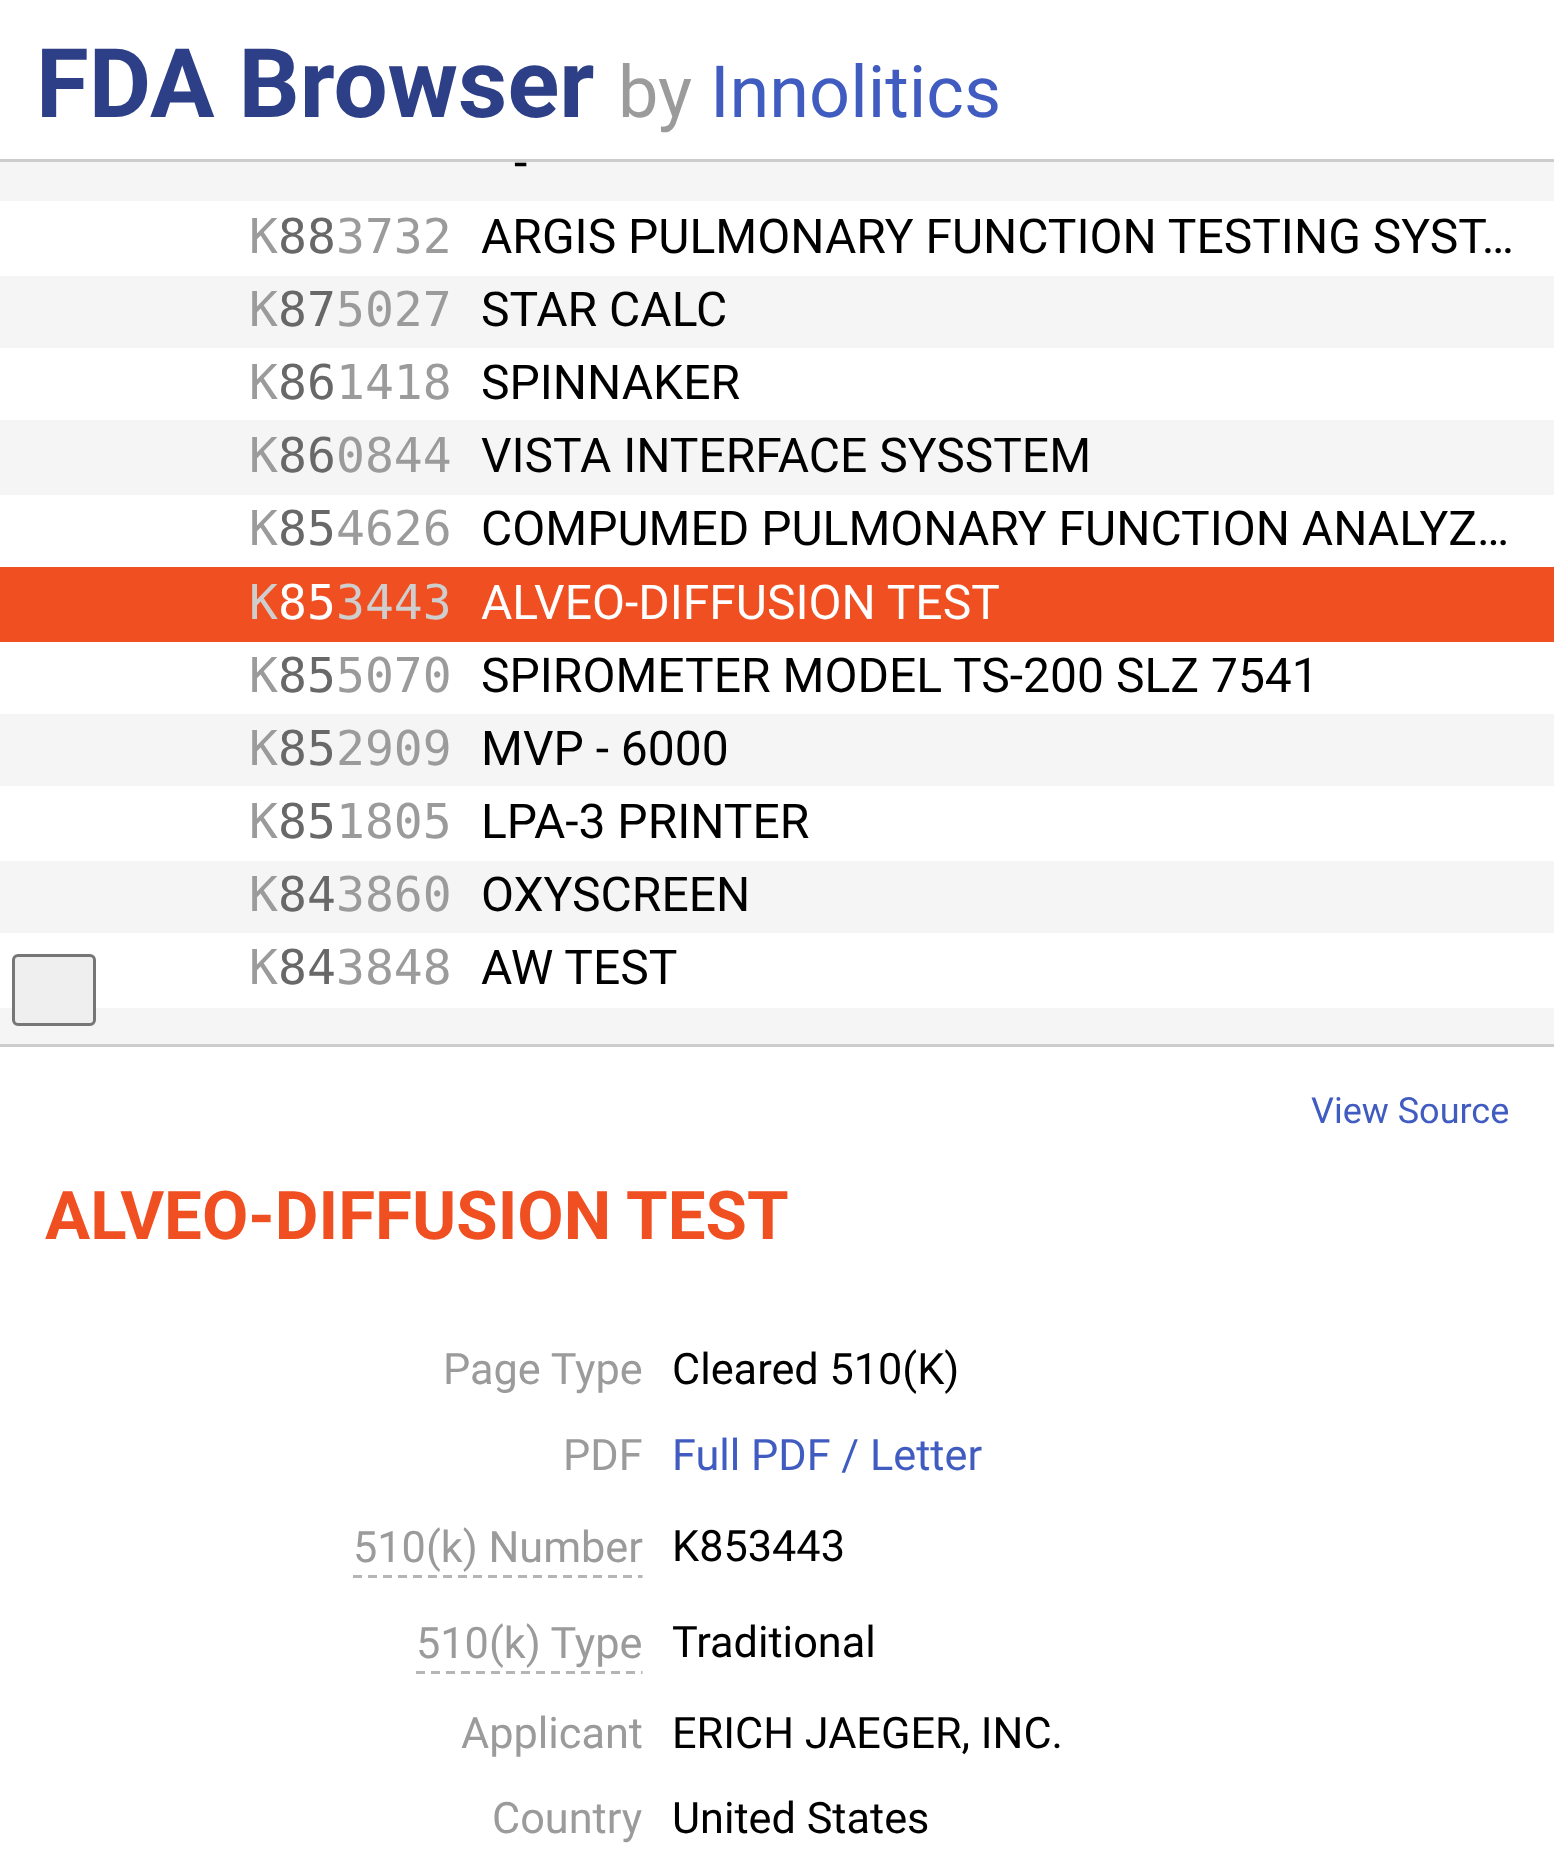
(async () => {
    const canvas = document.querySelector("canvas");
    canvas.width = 1554;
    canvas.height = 1866;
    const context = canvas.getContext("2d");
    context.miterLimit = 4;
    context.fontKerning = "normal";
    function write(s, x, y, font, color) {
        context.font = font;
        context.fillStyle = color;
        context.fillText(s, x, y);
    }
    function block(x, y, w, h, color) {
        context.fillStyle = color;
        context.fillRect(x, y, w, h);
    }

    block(0, 0, 1554, 1866, "rgb(255, 255, 255)");
    block(0, 159, 1554, 3, "rgb(204, 204, 204)");
    write("FDA Browser", 36, 117, "bold 96px Roboto", "rgb(45, 64, 135)");
    write("by", 618, 117, "72px Roboto", "rgb(155, 155, 155)");
    write("Innolitics", 710, 117, "72px Roboto", "rgb(65, 92, 192)");
    block(0, 162, 1554, 39, "rgb(245, 245, 245)");
    write("-", 514, 179, "48px Roboto", "rgb(0, 0, 0)");
    write("K", 249, 253, "48px DejaVu Sans Mono", "rgb(155, 155, 155)");
    write("88", 278, 253, "48px DejaVu Sans Mono", "rgb(104, 104, 104)");
    write("3732", 336, 253, "48px DejaVu Sans Mono", "rgb(155, 155, 155)");
    write("ARGIS PULMONARY FUNCTION TESTING SYST…", 481, 253, "48px Roboto", "rgb(0, 0, 0)");
    block(0, 276, 1554, 72, "rgb(245, 245, 245)");
    write("K", 249, 326, "48px DejaVu Sans Mono", "rgb(155, 155, 155)");
    write("87", 278, 326, "48px DejaVu Sans Mono", "rgb(104, 104, 104)");
    write("5027", 336, 326, "48px DejaVu Sans Mono", "rgb(155, 155, 155)");
    write("STAR CALC", 481, 326, "48px Roboto", "rgb(0, 0, 0)");
    write("K", 249, 399, "48px DejaVu Sans Mono", "rgb(155, 155, 155)");
    write("86", 278, 399, "48px DejaVu Sans Mono", "rgb(104, 104, 104)");
    write("1418", 336, 399, "48px DejaVu Sans Mono", "rgb(155, 155, 155)");
    write("SPINNAKER", 481, 399, "48px Roboto", "rgb(0, 0, 0)");
    block(0, 420, 1554, 75, "rgb(245, 245, 245)");
    write("K", 249, 472, "48px DejaVu Sans Mono", "rgb(155, 155, 155)");
    write("86", 278, 472, "48px DejaVu Sans Mono", "rgb(104, 104, 104)");
    write("0844", 336, 472, "48px DejaVu Sans Mono", "rgb(155, 155, 155)");
    write("VISTA INTERFACE SYSSTEM", 481, 472, "48px Roboto", "rgb(0, 0, 0)");
    write("K", 249, 545, "48px DejaVu Sans Mono", "rgb(155, 155, 155)");
    write("85", 278, 545, "48px DejaVu Sans Mono", "rgb(104, 104, 104)");
    write("4626", 336, 545, "48px DejaVu Sans Mono", "rgb(155, 155, 155)");
    write("COMPUMED PULMONARY FUNCTION ANALYZ…", 481, 545, "48px Roboto", "rgb(0, 0, 0)");
    block(0, 567, 1554, 75, "rgb(240, 79, 34)");
    write("K", 249, 619, "48px DejaVu Sans Mono", "rgb(206, 206, 206)");
    write("85", 278, 619, "48px DejaVu Sans Mono", "rgb(255, 255, 255)");
    write("3443", 336, 619, "48px DejaVu Sans Mono", "rgb(206, 206, 206)");
    write("ALVEO-DIFFUSION TEST", 481, 619, "48px Roboto", "rgb(255, 255, 255)");
    write("K", 249, 692, "48px DejaVu Sans Mono", "rgb(155, 155, 155)");
    write("85", 278, 692, "48px DejaVu Sans Mono", "rgb(104, 104, 104)");
    write("5070", 336, 692, "48px DejaVu Sans Mono", "rgb(155, 155, 155)");
    write("SPIROMETER MODEL TS-200 SLZ 7541", 481, 692, "48px Roboto", "rgb(0, 0, 0)");
    block(0, 714, 1554, 72, "rgb(245, 245, 245)");
    write("K", 249, 765, "48px DejaVu Sans Mono", "rgb(155, 155, 155)");
    write("85", 278, 765, "48px DejaVu Sans Mono", "rgb(104, 104, 104)");
    write("2909", 336, 765, "48px DejaVu Sans Mono", "rgb(155, 155, 155)");
    write("MVP - 6000", 481, 765, "48px Roboto", "rgb(0, 0, 0)");
    write("K", 249, 838, "48px DejaVu Sans Mono", "rgb(155, 155, 155)");
    write("85", 278, 838, "48px DejaVu Sans Mono", "rgb(104, 104, 104)");
    write("1805", 336, 838, "48px DejaVu Sans Mono", "rgb(155, 155, 155)");
    write("LPA-3 PRINTER", 481, 838, "48px Roboto", "rgb(0, 0, 0)");
    block(0, 861, 1554, 72, "rgb(245, 245, 245)");
    write("K", 249, 911, "48px DejaVu Sans Mono", "rgb(155, 155, 155)");
    write("84", 278, 911, "48px DejaVu Sans Mono", "rgb(104, 104, 104)");
    write("3860", 336, 911, "48px DejaVu Sans Mono", "rgb(155, 155, 155)");
    write("OXYSCREEN", 481, 911, "48px Roboto", "rgb(0, 0, 0)");
    write("K", 249, 984, "48px DejaVu Sans Mono", "rgb(155, 155, 155)");
    write("84", 278, 984, "48px DejaVu Sans Mono", "rgb(104, 104, 104)");
    write("3848", 336, 984, "48px DejaVu Sans Mono", "rgb(155, 155, 155)");
    write("AW TEST", 481, 984, "48px Roboto", "rgb(0, 0, 0)");
    block(0, 1008, 1554, 36, "rgb(245, 245, 245)");
    block(0, 1044, 1554, 3, "rgb(204, 204, 204)");
    context.fillStyle = "rgb(239, 239, 239)";
    context.beginPath();
    context.roundRect(13.5, 955.5, 81, 69, 4.5);
    context.fill();
    context.strokeStyle = "rgb(118, 118, 118)";
    context.lineWidth = 3;
    context.stroke();
    write("View Source", 1311, 1123, "36px Roboto", "rgb(65, 92, 192)");
    write("ALVEO-DIFFUSION TEST", 45, 1239, "bold 67.25px Roboto", "rgb(240, 79, 34)");
    write("Page Type", 443, 1384, "43.25px Roboto", "rgb(155, 155, 155)");
    write("Cleared 510(K)", 672, 1384, "43.25px Roboto", "rgb(0, 0, 0)");
    write("PDF", 563, 1470, "43.25px Roboto", "rgb(155, 155, 155)");
    write("Full PDF / Letter", 672, 1470, "43.25px Roboto", "rgb(65, 92, 192)");
    write("510(k) Number", 353, 1562, "43.25px Roboto", "rgb(155, 155, 155)");
    context.beginPath();
    context.moveTo(353, 1576.5);
    context.lineTo(642.5, 1576.5);
    context.strokeStyle = "rgb(181, 181, 181)";
    context.setLineDash([9, 6]);
    context.stroke();
    write("K853443", 672, 1561, "43.25px Roboto", "rgb(0, 0, 0)");
    write("510(k) Type", 416, 1658, "43.25px Roboto", "rgb(155, 155, 155)");
    context.beginPath();
    context.moveTo(416, 1672.5);
    context.lineTo(642.5, 1672.5);
    context.stroke();
    write("Traditional", 672, 1657, "43.25px Roboto", "rgb(0, 0, 0)");
    write("Applicant", 461, 1748, "43.25px Roboto", "rgb(155, 155, 155)");
    write("ERICH JAEGER, INC.", 672, 1748, "43.25px Roboto", "rgb(0, 0, 0)");
    write("Country", 492, 1833, "43.25px Roboto", "rgb(155, 155, 155)");
    write("United States", 672, 1833, "43.25px Roboto", "rgb(0, 0, 0)");
})();
